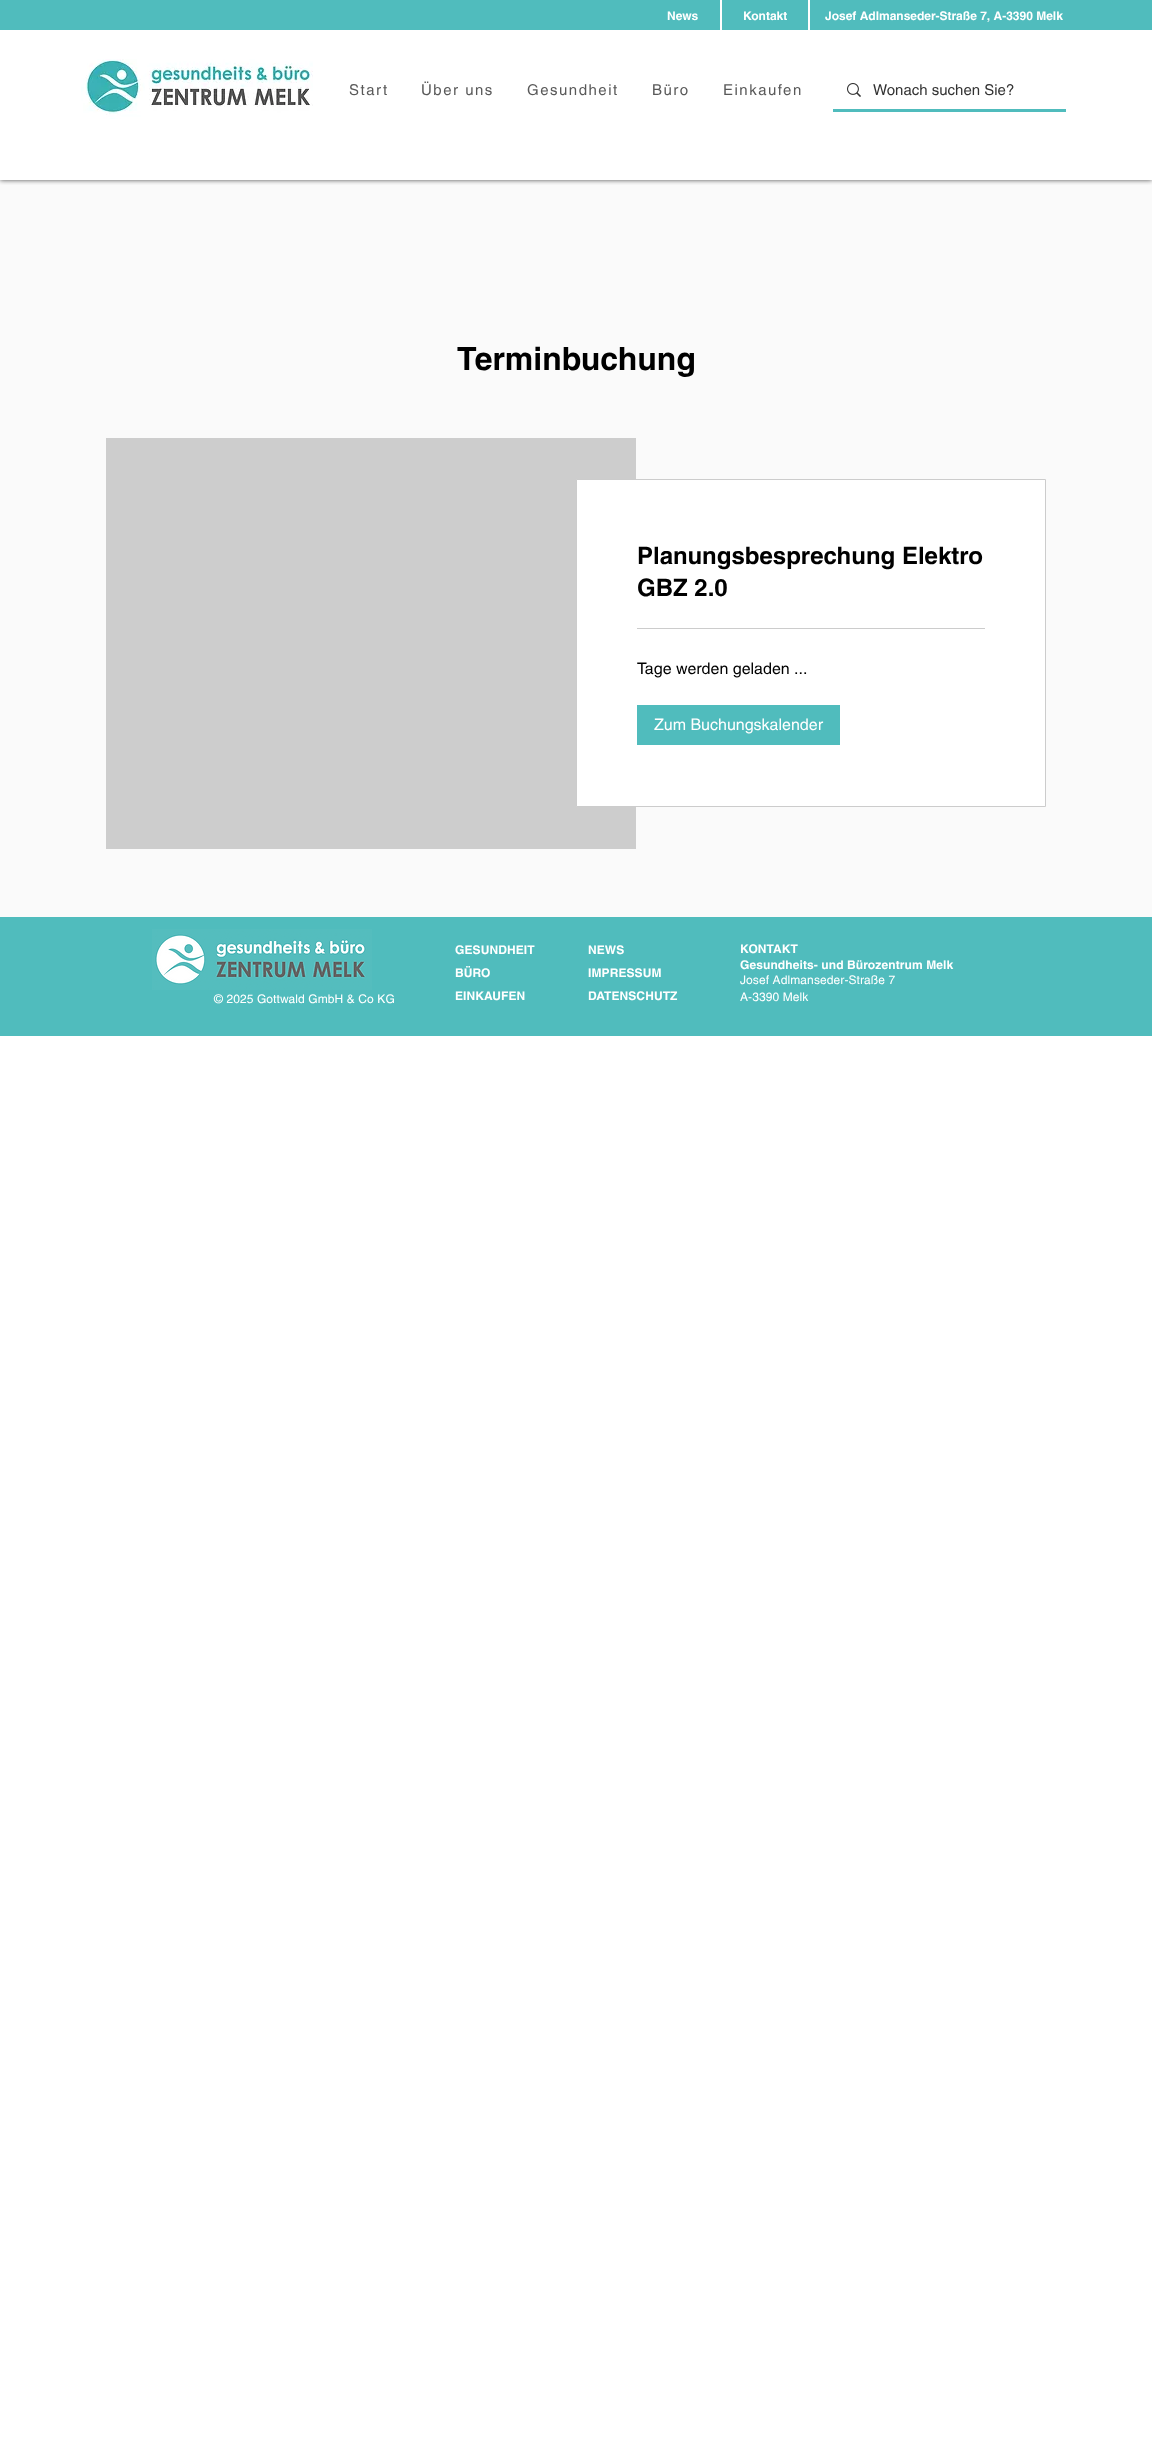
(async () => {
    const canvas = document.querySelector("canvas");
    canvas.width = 1152;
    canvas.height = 2453;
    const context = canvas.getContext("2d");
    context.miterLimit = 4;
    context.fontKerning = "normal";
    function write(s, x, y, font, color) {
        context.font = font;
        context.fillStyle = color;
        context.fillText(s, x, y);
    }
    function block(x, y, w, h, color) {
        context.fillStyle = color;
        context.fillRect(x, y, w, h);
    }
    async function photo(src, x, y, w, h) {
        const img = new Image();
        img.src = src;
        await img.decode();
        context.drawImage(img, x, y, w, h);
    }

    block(0, 0, 1152, 2453, "rgb(255, 255, 255)");
    block(0, 180, 1152, 737, "rgb(250, 250, 250)");
    context.save();
    context.beginPath();
    context.rect(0, 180, 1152, 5);
    context.clip();
    context.fillStyle = "rgba(0, 0, 0, 0.7)";
    context.filter = "blur(2.5px)";
    context.beginPath();
    context.rect(0, 0, 1152, 180);
    context.fill();
    context.filter = "none";
    context.restore();
    block(0, 0, 1152, 30, "rgb(80, 188, 189)");
    write("News", 667, 20, "bold 12px helvetica", "rgb(255, 255, 255)");
    block(808, 0, 2, 30, "rgb(255, 255, 255)");
    block(720, 0, 2, 30, "rgb(255, 255, 255)");
    write("Kontakt", 743, 20, "bold 12px helvetica", "rgb(255, 255, 255)");
    write("Josef Adlmanseder-Straße 7, A-3390 Melk", 825, 20, "bold 12px helvetica", "rgb(255, 255, 255)");
    await photo("media/1.png", 81, 59, 232, 60);
    context.letterSpacing = "1.5px";
    write("Start", 349, 95, "15px helvetica", "rgb(89, 89, 89)");
    write("Über uns", 421, 95, "15px helvetica", "rgb(89, 89, 89)");
    write("Gesundheit", 527, 95, "15px helvetica", "rgb(89, 89, 89)");
    write("Büro", 652, 95, "15px helvetica", "rgb(89, 89, 89)");
    write("Einkaufen", 723, 95, "15px helvetica", "rgb(89, 89, 89)");
    block(833, 109, 233, 3, "rgb(80, 188, 189)");
    await photo("media/2.png", 847, 83, 14, 14);
    context.letterSpacing = "0px";
    write("Wonach suchen Sie?", 873, 95, "15px helvetica", "rgb(51, 51, 51)");
    write("Terminbuchung", 457, 370, "bold 32px helvetica", "rgb(0, 0, 0)");
    block(106, 438, 530, 411, "rgb(205, 205, 205)");
    context.fillStyle = "rgb(255, 255, 255)";
    context.beginPath();
    context.rect(576.5, 479.5, 469, 327);
    context.fill();
    context.strokeStyle = "rgb(204, 204, 204)";
    context.stroke();
    write("Planungsbesprechung Elektro", 637, 564, "bold 24px helvetica", "rgb(0, 0, 0)");
    write("GBZ 2.0", 637, 596, "bold 24px helvetica", "rgb(0, 0, 0)");
    block(637, 628, 348, 1, "rgb(204, 204, 204)");
    write("Tage werden geladen ...", 637, 674, "16px helvetica", "rgb(0, 0, 0)");
    block(637, 705, 203, 40, "rgb(80, 188, 189)");
    write("Zum Buchungskalender", 654, 730, "16px helvetica", "rgb(255, 255, 255)");
    block(0, 917, 1152, 119, "rgb(80, 188, 189)");
    await photo("media/3.png", 152, 929, 220, 61);
    context.letterSpacing = "0.1px";
    write("GESUNDHEIT", 455, 954, "bold 12px helvetica", "rgb(255, 255, 255)");
    write("BÜRO", 455, 977, "bold 12px helvetica", "rgb(255, 255, 255)");
    write("EINKAUFEN", 455, 1000, "bold 12px helvetica", "rgb(255, 255, 255)");
    write("NEWS", 588, 954, "bold 12px helvetica", "rgb(255, 255, 255)");
    write("IMPRESSUM", 588, 977, "bold 12px helvetica", "rgb(255, 255, 255)");
    write("DATENSCHUTZ", 588, 1000, "bold 12px helvetica", "rgb(255, 255, 255)");
    write("KONTAKT", 740, 953, "bold 12px helvetica", "rgb(255, 255, 255)");
    write("Gesundheits- und Bürozentrum Melk", 740, 969, "bold 12px helvetica", "rgb(255, 255, 255)");
    write("Josef Adlmanseder-Straße 7", 740, 984, "12px helvetica", "rgb(255, 255, 255)");
    write("A-3390 Melk", 740, 1001, "12px helvetica", "rgb(255, 255, 255)");
    write("© 2025 Gottwald GmbH & Co KG", 214, 1003, "12px helvetica", "rgb(255, 255, 255)");
})();
